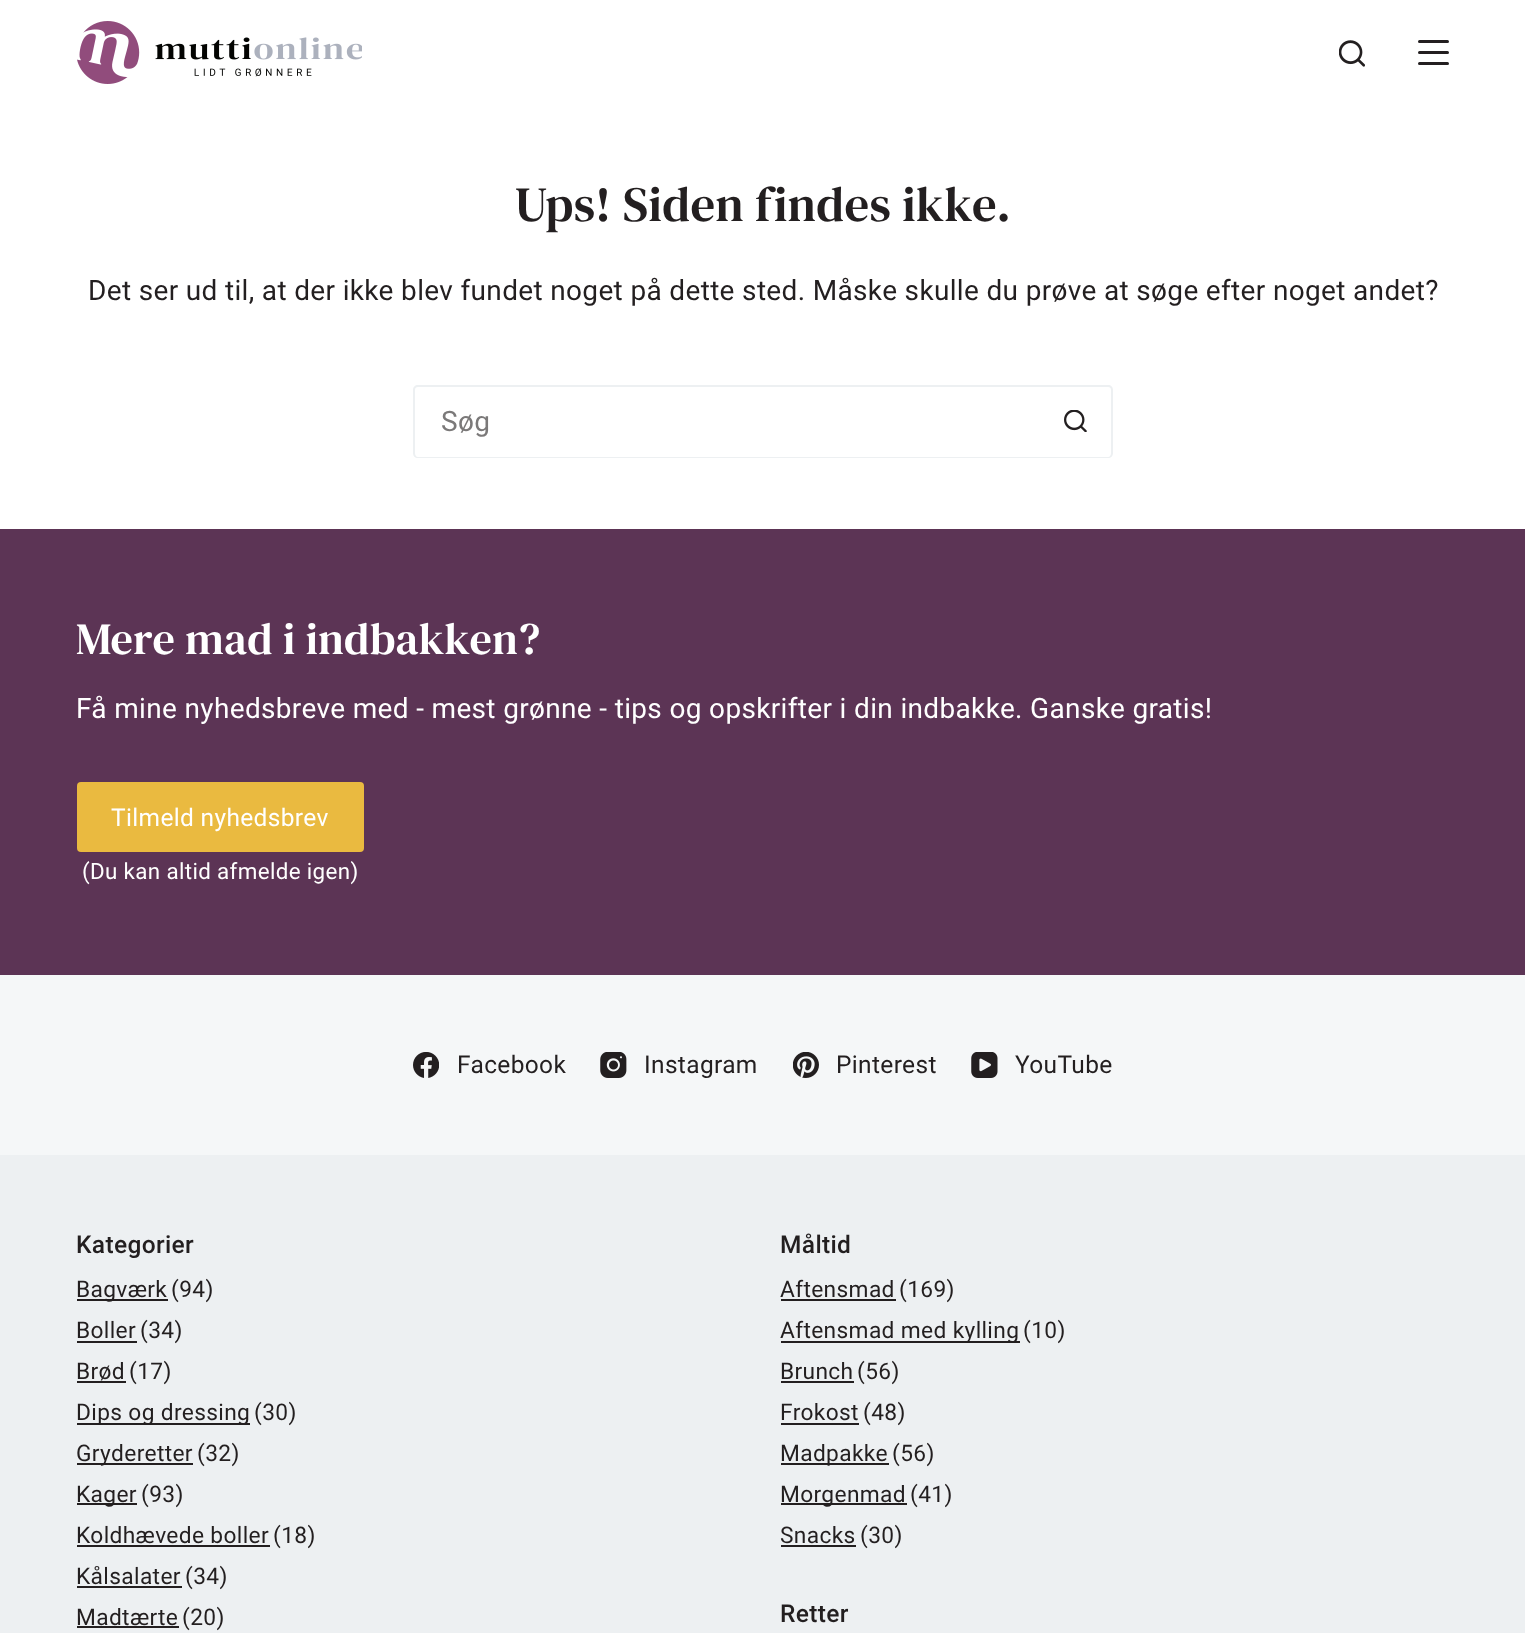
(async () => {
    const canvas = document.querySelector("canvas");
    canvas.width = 1525;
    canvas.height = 1633;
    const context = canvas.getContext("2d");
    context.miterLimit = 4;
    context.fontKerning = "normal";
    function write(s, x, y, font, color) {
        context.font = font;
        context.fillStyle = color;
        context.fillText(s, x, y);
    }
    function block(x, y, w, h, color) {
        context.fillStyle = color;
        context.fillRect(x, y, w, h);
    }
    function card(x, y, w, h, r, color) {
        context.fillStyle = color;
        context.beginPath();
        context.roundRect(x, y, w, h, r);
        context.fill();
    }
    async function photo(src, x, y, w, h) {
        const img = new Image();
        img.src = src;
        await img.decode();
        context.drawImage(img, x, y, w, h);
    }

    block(0, 0, 1525, 1633, "rgb(255, 255, 255)");
    await photo("media/1.png", 77, 21, 285, 63);
    await photo("media/2.png", 1339, 40, 26, 27);
    card(1418, 40, 31, 3, 1.5, "rgb(35, 31, 32)");
    card(1418, 51, 31, 3, 1.5, "rgb(35, 31, 32)");
    card(1418, 62, 31, 3, 1.5, "rgb(35, 31, 32)");
    context.letterSpacing = "0.35px";
    write("Ups! Siden findes ikke.", 515, 221, "49px DM Serif Text", "rgb(35, 31, 32)");
    write("Det ser ud til, at der ikke blev fundet noget på dette sted. Måske skulle du prøve at søge efter noget andet?", 88, 300, "28px Roboto", "rgb(35, 31, 32)");
    context.fillStyle = "rgb(237, 240, 242)";
    context.beginPath();
    context.moveTo(418, 385);
    context.lineTo(1040, 385);
    context.lineTo(1040, 458);
    context.lineTo(418, 458);
    context.bezierCurveTo(415, 458, 413, 456, 413, 453);
    context.lineTo(413, 390);
    context.bezierCurveTo(413, 387, 415, 385, 418, 385);
    context.closePath();
    context.moveTo(418, 387);
    context.lineTo(1040, 387);
    context.lineTo(1040, 457);
    context.lineTo(418, 457);
    context.bezierCurveTo(416, 457, 415, 455, 415, 453);
    context.lineTo(415, 390);
    context.bezierCurveTo(415, 388, 416, 387, 418, 387);
    context.closePath();
    context.fill("evenodd");
    write("Søg", 441, 431, "28px Roboto", "rgb(123, 121, 121)");
    context.fillStyle = "rgb(237, 240, 242)";
    context.beginPath();
    context.moveTo(1040, 385);
    context.lineTo(1108, 385);
    context.bezierCurveTo(1111, 385, 1113, 387, 1113, 390);
    context.lineTo(1113, 453);
    context.bezierCurveTo(1113, 456, 1111, 458, 1108, 458);
    context.lineTo(1040, 458);
    context.closePath();
    context.moveTo(1040, 387);
    context.lineTo(1108, 387);
    context.bezierCurveTo(1110, 387, 1111, 388, 1111, 390);
    context.lineTo(1111, 453);
    context.bezierCurveTo(1111, 455, 1110, 457, 1108, 457);
    context.lineTo(1040, 457);
    context.closePath();
    context.fill("evenodd");
    await photo("media/3.png", 1064, 410, 23, 22);
    block(0, 529, 1525, 446, "rgb(92, 52, 85)");
    write("Mere mad i indbakken?", 76, 654, "44.5px DM Serif Text", "rgb(255, 255, 255)");
    write("Få mine nyhedsbreve med - mest grønne - tips og opskrifter i din indbakke. Ganske gratis!", 76, 718, "28px Roboto", "rgb(255, 255, 255)");
    card(77, 782, 287, 70, 4, "rgb(234, 186, 64)");
    write("Tilmeld nyhedsbrev", 111, 826, "24.5px Roboto", "rgb(255, 255, 255)");
    write("(Du kan altid afmelde igen)", 82, 879, "22.4px Roboto", "rgb(255, 255, 255)");
    block(0, 1155, 1525, 478, "rgb(237, 240, 242)");
    block(0, 975, 1525, 180, "rgb(245, 247, 248)");
    await photo("media/4.png", 413, 1052, 26, 26);
    write("Facebook", 457, 1073, "24.5px Roboto", "rgb(35, 31, 32)");
    await photo("media/5.png", 600, 1052, 27, 26);
    write("Instagram", 644, 1073, "24.5px Roboto", "rgb(35, 31, 32)");
    await photo("media/6.png", 793, 1052, 26, 26);
    write("Pinterest", 836, 1073, "24.5px Roboto", "rgb(35, 31, 32)");
    await photo("media/7.png", 971, 1052, 27, 26);
    write("YouTube", 1015, 1073, "24.5px Roboto", "rgb(35, 31, 32)");
    write("Kategorier", 76, 1253, "500 24.5px Roboto", "rgb(35, 31, 32)");
    block(77, 1299, 91, 2, "rgb(35, 31, 32)");
    write("Bagværk", 76, 1297, "22.75px Roboto", "rgb(35, 31, 32)");
    write("(94)", 171, 1297, "22.75px Roboto", "rgb(35, 31, 32)");
    write("Boller", 76, 1338, "22.75px Roboto", "rgb(35, 31, 32)");
    block(77, 1341, 60, 2, "rgb(35, 31, 32)");
    write("(34)", 140, 1338, "22.75px Roboto", "rgb(35, 31, 32)");
    write("Brød", 76, 1379, "22.75px Roboto", "rgb(35, 31, 32)");
    block(77, 1381, 49, 2, "rgb(35, 31, 32)");
    write("(17)", 129, 1379, "22.75px Roboto", "rgb(35, 31, 32)");
    block(77, 1423, 173, 2, "rgb(35, 31, 32)");
    write("Dips og dressing", 76, 1420, "22.75px Roboto", "rgb(35, 31, 32)");
    write("(30)", 254, 1420, "22.75px Roboto", "rgb(35, 31, 32)");
    block(77, 1463, 116, 2, "rgb(35, 31, 32)");
    write("Gryderetter", 76, 1461, "22.75px Roboto", "rgb(35, 31, 32)");
    write("(32)", 197, 1461, "22.75px Roboto", "rgb(35, 31, 32)");
    block(77, 1503, 60, 2, "rgb(35, 31, 32)");
    write("Kager", 76, 1502, "22.75px Roboto", "rgb(35, 31, 32)");
    write("(93)", 141, 1502, "22.75px Roboto", "rgb(35, 31, 32)");
    write("Koldhævede boller", 76, 1543, "22.75px Roboto", "rgb(35, 31, 32)");
    block(77, 1545, 193, 2, "rgb(35, 31, 32)");
    write("(18)", 273, 1543, "22.75px Roboto", "rgb(35, 31, 32)");
    write("Kålsalater", 76, 1584, "22.75px Roboto", "rgb(35, 31, 32)");
    block(77, 1586, 105, 2, "rgb(35, 31, 32)");
    write("(34)", 185, 1584, "22.75px Roboto", "rgb(35, 31, 32)");
    write("Madtærte", 76, 1625, "22.75px Roboto", "rgb(35, 31, 32)");
    block(77, 1626, 102, 2, "rgb(35, 31, 32)");
    write("(20)", 182, 1625, "22.75px Roboto", "rgb(35, 31, 32)");
    write("Måltid", 780, 1253, "500 24.5px Roboto", "rgb(35, 31, 32)");
    write("Aftensmad", 780, 1297, "22.75px Roboto", "rgb(35, 31, 32)");
    block(781, 1299, 115, 2, "rgb(35, 31, 32)");
    write("(169)", 899, 1297, "22.75px Roboto", "rgb(35, 31, 32)");
    block(781, 1341, 239, 2, "rgb(35, 31, 32)");
    write("Aftensmad med kylling", 780, 1338, "22.75px Roboto", "rgb(35, 31, 32)");
    write("(10)", 1023, 1338, "22.75px Roboto", "rgb(35, 31, 32)");
    write("Brunch", 780, 1379, "22.75px Roboto", "rgb(35, 31, 32)");
    block(781, 1381, 73, 2, "rgb(35, 31, 32)");
    write("(56)", 857, 1379, "22.75px Roboto", "rgb(35, 31, 32)");
    write("Frokost", 780, 1420, "22.75px Roboto", "rgb(35, 31, 32)");
    block(781, 1423, 78, 2, "rgb(35, 31, 32)");
    write("(48)", 863, 1420, "22.75px Roboto", "rgb(35, 31, 32)");
    block(781, 1463, 108, 2, "rgb(35, 31, 32)");
    write("Madpakke", 780, 1461, "22.75px Roboto", "rgb(35, 31, 32)");
    write("(56)", 892, 1461, "22.75px Roboto", "rgb(35, 31, 32)");
    block(781, 1503, 126, 2, "rgb(35, 31, 32)");
    write("Morgenmad", 780, 1502, "22.75px Roboto", "rgb(35, 31, 32)");
    write("(41)", 910, 1502, "22.75px Roboto", "rgb(35, 31, 32)");
    write("Snacks", 780, 1543, "22.75px Roboto", "rgb(35, 31, 32)");
    block(781, 1545, 75, 2, "rgb(35, 31, 32)");
    write("(30)", 860, 1543, "22.75px Roboto", "rgb(35, 31, 32)");
    write("Retter", 780, 1622, "500 24.5px Roboto", "rgb(35, 31, 32)");
})();
